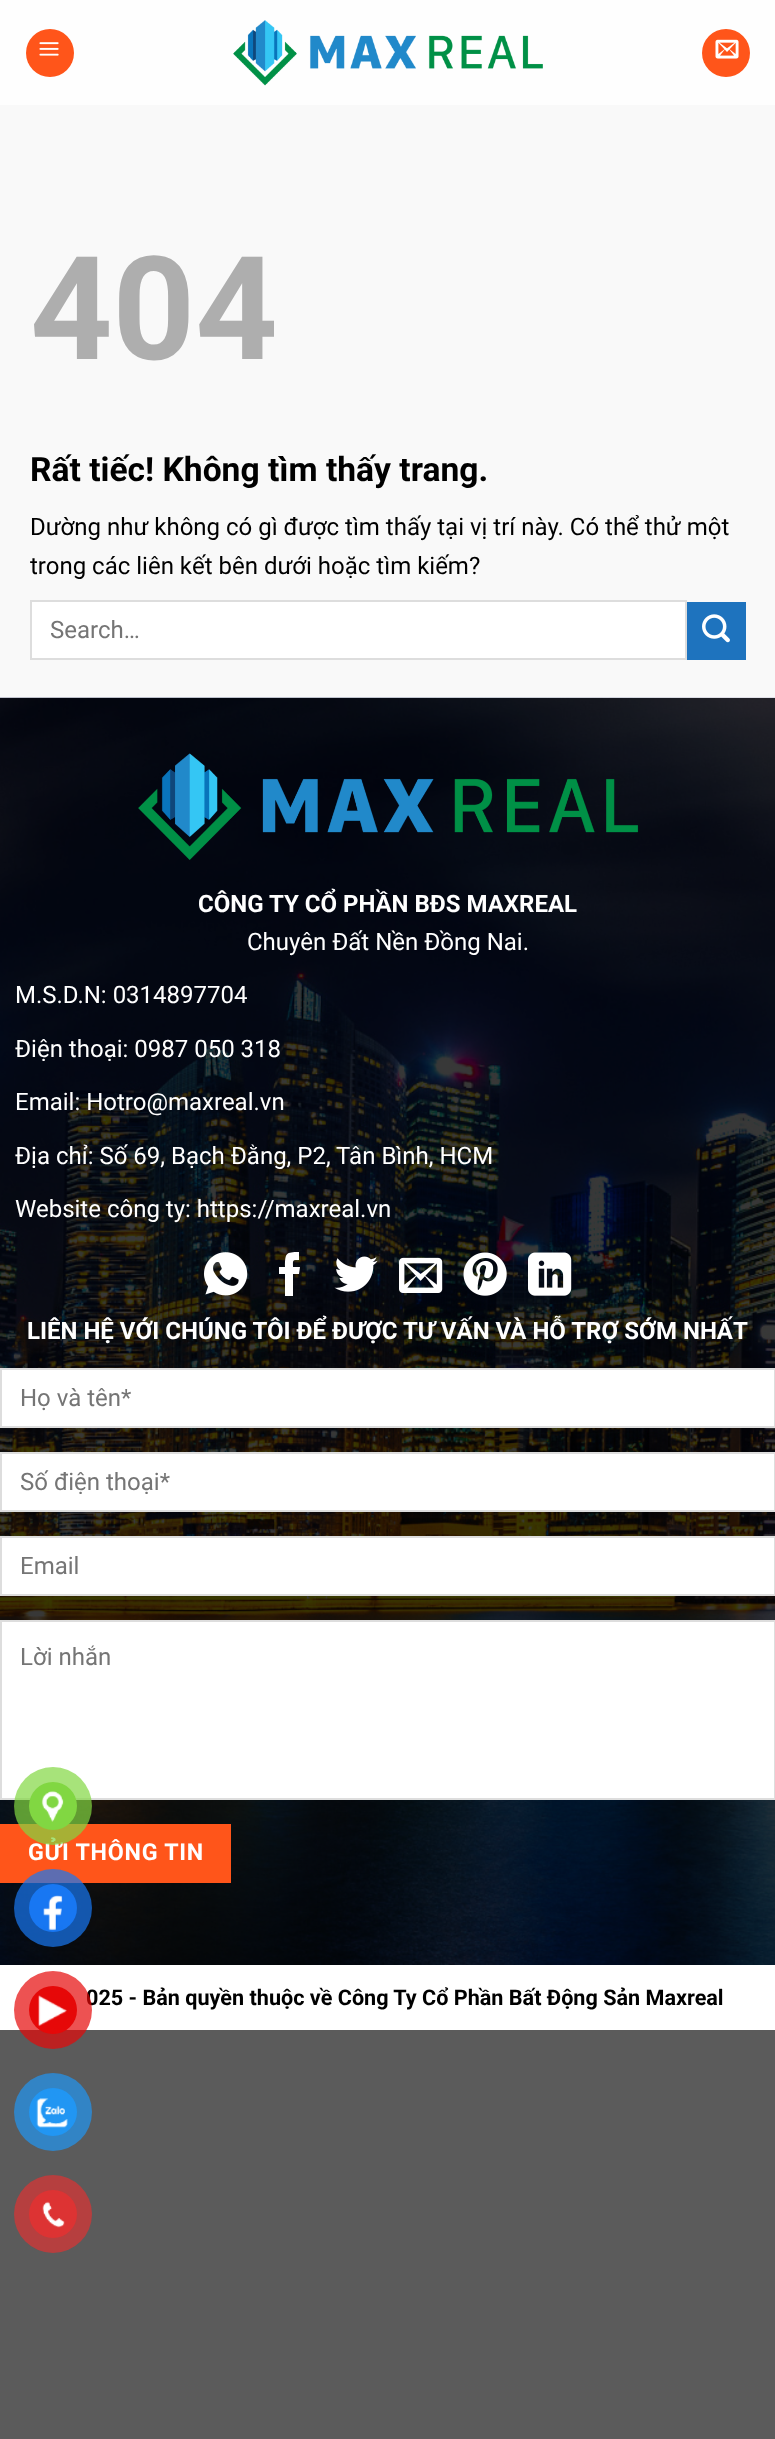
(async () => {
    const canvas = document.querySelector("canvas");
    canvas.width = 775;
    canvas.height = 2439;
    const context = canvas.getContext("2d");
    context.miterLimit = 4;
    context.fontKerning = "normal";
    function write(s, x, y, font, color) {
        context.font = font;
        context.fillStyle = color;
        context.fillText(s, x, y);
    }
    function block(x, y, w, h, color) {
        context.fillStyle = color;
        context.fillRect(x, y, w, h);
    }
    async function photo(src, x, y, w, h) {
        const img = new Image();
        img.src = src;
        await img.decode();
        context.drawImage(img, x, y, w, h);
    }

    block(0, 0, 775, 2439, "rgb(91, 91, 91)");
    block(0, 105, 775, 593, "rgb(249, 249, 249)");
    block(0, 0, 775, 105, "rgb(254, 254, 254)");
    context.fillStyle = "rgb(255, 85, 26)";
    context.beginPath();
    context.arc(50, 53, 24, 0, Math.PI * 2);
    context.fill();
    await photo("media/1.png", 39, 42, 20, 14);
    await photo("media/2.png", 233, 20, 310, 66);
    context.beginPath();
    context.arc(726, 53, 24, 0, Math.PI * 2);
    context.fill();
    await photo("media/3.png", 715, 39, 24, 20);
    write("404", 30, 359, "bold 144px Roboto", "rgb(174, 174, 174)");
    write("Rất tiếc! Không tìm thấy trang.", 30, 481, "bold 33.6px Roboto", "rgb(0, 0, 0)");
    write("Dường như không có gì được tìm thấy tại vị trí này. Có thể thử một", 30, 535, "24px Roboto", "rgb(0, 0, 0)");
    write("trong các liên kết bên dưới hoặc tìm kiếm?", 30, 574, "24px Roboto", "rgb(0, 0, 0)");
    context.fillStyle = "rgb(255, 255, 255)";
    context.beginPath();
    context.rect(31, 601, 655, 58);
    context.fill();
    context.strokeStyle = "rgb(221, 221, 221)";
    context.lineWidth = 2;
    context.stroke();
    write("Search…", 50, 638, "24px Roboto", "rgb(117, 117, 117)");
    block(687, 602, 59, 58, "rgb(30, 115, 190)");
    await photo("media/4.png", 702, 614, 28, 29);
    await photo("media/5.png", 0, 697, 775, 1268);
    await photo("media/6.png", 138, 753, 501, 107);
    write("CÔNG TY CỔ PHẦN BĐS MAXREAL", 198, 912, "bold 24px Roboto", "rgb(255, 255, 255)");
    write("Chuyên Đất Nền Đồng Nai.", 247, 950, "24px Roboto", "rgb(255, 255, 255)");
    write("M.S.D.N: 0314897704", 15, 1003, "24px Roboto", "rgb(255, 255, 255)");
    write("Điện thoại: 0987 050 318", 15, 1057, "24px Roboto", "rgb(255, 255, 255)");
    write("Email: Hotro@maxreal.vn", 15, 1110, "24px Roboto", "rgb(255, 255, 255)");
    write("Địa chỉ: Số 69, Bạch Đằng, P2, Tân Bình, HCM", 15, 1164, "24px Roboto", "rgb(255, 255, 255)");
    write("Website công ty: https://maxreal.vn", 15, 1217, "24px Roboto", "rgb(255, 255, 255)");
    await photo("media/7.png", 204, 1252, 44, 44);
    context.beginPath();
    context.moveTo(293, 1296);
    context.lineTo(285, 1296);
    context.lineTo(285, 1274);
    context.lineTo(279, 1274);
    context.lineTo(279, 1267);
    context.lineTo(285, 1267);
    context.bezierCurveTo(285, 1253, 286, 1252, 299, 1252);
    context.lineTo(299, 1260);
    context.bezierCurveTo(292, 1260, 293, 1260, 293, 1267);
    context.lineTo(300, 1267);
    context.lineTo(299, 1274);
    context.lineTo(293, 1274);
    context.closePath();
    context.fill();
    await photo("media/8.png", 334, 1256, 44, 36);
    await photo("media/9.png", 399, 1257, 44, 36);
    await photo("media/10.png", 463, 1252, 44, 44);
    await photo("media/11.png", 528, 1252, 44, 44);
    write("LIÊN HỆ VỚI CHÚNG TÔI ĐỂ ĐƯỢC TƯ VẤN VÀ HỖ TRỢ SỚM NHẤT", 27, 1339, "bold 24px Roboto", "rgb(255, 255, 255)");
    context.beginPath();
    context.rect(1, 1369, 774, 58);
    context.fill();
    context.stroke();
    write("Họ và tên*", 20, 1406, "24px Roboto", "rgb(117, 117, 117)");
    context.fillStyle = "rgb(255, 255, 255)";
    context.beginPath();
    context.rect(1, 1453, 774, 58);
    context.fill();
    context.stroke();
    write("Số điện thoại*", 20, 1490, "24px Roboto", "rgb(117, 117, 117)");
    context.fillStyle = "rgb(255, 255, 255)";
    context.beginPath();
    context.rect(1, 1537, 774, 58);
    context.fill();
    context.stroke();
    write("Email", 20, 1574, "24px Roboto", "rgb(117, 117, 117)");
    context.fillStyle = "rgb(255, 255, 255)";
    context.beginPath();
    context.rect(1, 1621, 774, 178);
    context.fill();
    context.stroke();
    write("Lời nhắn", 20, 1665, "24px Roboto", "rgb(117, 117, 117)");
    block(0, 1824, 231, 59, "rgb(255, 85, 26)");
    context.letterSpacing = "0.75px";
    write("GỬI THÔNG TIN", 28, 1860, "bold 23.25px Roboto", "rgb(255, 255, 255)");
    block(0, 1965, 775, 65, "rgb(255, 255, 255)");
    context.letterSpacing = "0px";
    write("025 - Bản quyền thuộc về Công Ty Cổ Phần Bất Động Sản Maxreal", 86, 2005, "bold 21.6px Roboto", "rgb(0, 0, 0)");
    context.fillStyle = "rgba(129, 215, 66, 0.7)";
    context.beginPath();
    context.arc(53, 1806, 39, 0, Math.PI * 2);
    context.fill();
    context.fillStyle = "rgb(129, 215, 66)";
    context.beginPath();
    context.arc(53, 1806, 24, 0, Math.PI * 2);
    context.fill();
    await photo("media/12.png", 41, 1791, 23, 31);
    context.fillStyle = "rgba(24, 119, 242, 0.7)";
    context.beginPath();
    context.arc(53, 1908, 39, 0, Math.PI * 2);
    context.fill();
    context.fillStyle = "rgb(24, 119, 242)";
    context.beginPath();
    context.arc(53, 1908, 24, 0, Math.PI * 2);
    context.fill();
    await photo("media/13.png", 43, 1895, 20, 36);
    context.fillStyle = "rgba(230, 8, 8, 0.7)";
    context.beginPath();
    context.arc(53, 2010, 39, 0, Math.PI * 2);
    context.fill();
    context.fillStyle = "rgb(230, 8, 8)";
    context.beginPath();
    context.arc(53, 2010, 24, 0, Math.PI * 2);
    context.fill();
    await photo("media/14.png", 38, 1995, 29, 32);
    context.fillStyle = "rgb(50, 132, 197)";
    context.beginPath();
    context.arc(53, 2112, 39, 0, Math.PI * 2);
    context.fill();
    context.fillStyle = "rgb(33, 150, 243)";
    context.beginPath();
    context.arc(53, 2112, 24, 0, Math.PI * 2);
    context.fill();
    await photo("media/15.png", 36, 2098, 32, 30);
    context.fillStyle = "rgb(182, 63, 63)";
    context.beginPath();
    context.arc(53, 2214, 39, 0, Math.PI * 2);
    context.fill();
    context.fillStyle = "rgb(221, 51, 51)";
    context.beginPath();
    context.arc(53, 2214, 24, 0, Math.PI * 2);
    context.fill();
    await photo("media/16.png", 42, 2201, 23, 27);
})();
